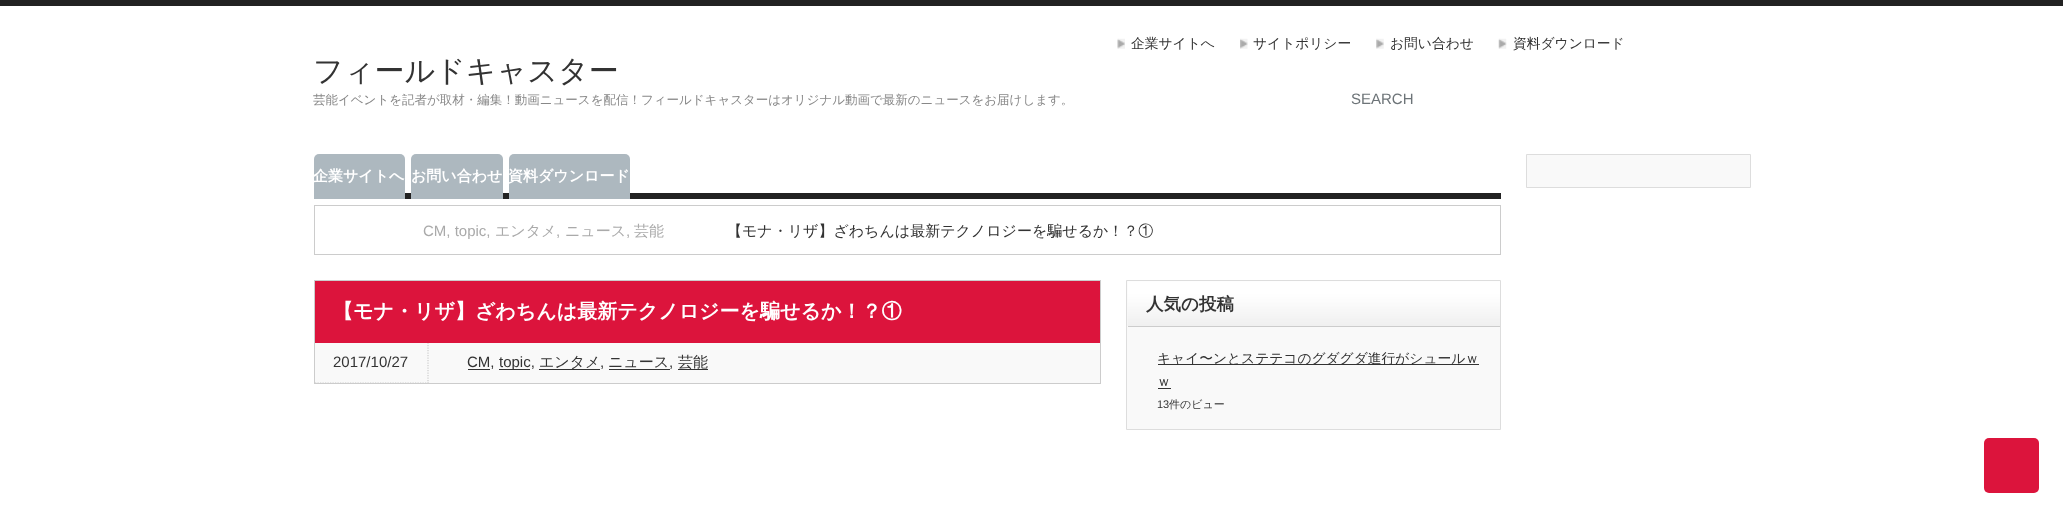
(async () => {
    const canvas = document.querySelector("canvas");
    canvas.width = 2063;
    canvas.height = 517;
    const context = canvas.getContext("2d");
    context.miterLimit = 4;
    context.fontKerning = "normal";
    function write(s, x, y, font, color) {
        context.font = font;
        context.fillStyle = color;
        context.fillText(s, x, y);
    }
    function block(x, y, w, h, color) {
        context.fillStyle = color;
        context.fillRect(x, y, w, h);
    }
    function card(x, y, w, h, r, color) {
        context.fillStyle = color;
        context.beginPath();
        context.roundRect(x, y, w, h, r);
        context.fill();
    }
    async function photo(src, x, y, w, h) {
        const img = new Image();
        img.src = src;
        await img.decode();
        context.drawImage(img, x, y, w, h);
    }

    block(0, 0, 2063, 517, "rgb(255, 255, 255)");
    block(0, 0, 2063, 6, "rgb(34, 34, 34)");
    await photo("media/1.png", 1117, 38, 8, 11);
    write("企業サイトへ", 1131, 48, "500 13.75px WenQuanYi Zen Hei", "rgb(51, 51, 51)");
    await photo("media/2.png", 1240, 38, 8, 11);
    write("サイトポリシー", 1253, 48, "500 13.75px WenQuanYi Zen Hei", "rgb(51, 51, 51)");
    await photo("media/3.png", 1376, 38, 8, 11);
    write("お問い合わせ", 1390, 48, "500 13.75px WenQuanYi Zen Hei", "rgb(51, 51, 51)");
    await photo("media/4.png", 1498, 38, 9, 11);
    write("資料ダウンロード", 1513, 48, "500 13.75px WenQuanYi Zen Hei", "rgb(51, 51, 51)");
    write("フィールドキャスター", 313, 81, "500 30px WenQuanYi Zen Hei", "rgb(51, 51, 51)");
    write("芸能イベントを記者が取材・編集！動画ニュースを配信！フィールドキャスターはオリジナル動画で最新のニュースをお届けします。", 313, 104, "500 12.5px WenQuanYi Zen Hei", "rgb(136, 136, 136)");
    write("SEARCH", 1351, 104, "15px Liberation Sans", "rgb(109, 116, 120)");
    block(405, 193, 1096, 6, "rgb(34, 34, 34)");
    context.fillStyle = "rgb(173, 184, 191)";
    context.beginPath();
    context.roundRect(314, 154, 91, 45, [5, 5, 0, 0]);
    context.fill();
    write("企業サイトへ", 313, 181, "bold 15px WenQuanYi Zen Hei", "rgb(255, 255, 255)");
    context.fillStyle = "rgb(173, 184, 191)";
    context.beginPath();
    context.roundRect(411, 154, 92, 45, [5, 5, 0, 0]);
    context.fill();
    write("お問い合わせ", 411, 181, "bold 15px WenQuanYi Zen Hei", "rgb(255, 255, 255)");
    context.fillStyle = "rgb(173, 184, 191)";
    context.beginPath();
    context.roundRect(509, 154, 121, 45, [5, 5, 0, 0]);
    context.fill();
    write("資料ダウンロード", 508, 181, "bold 15px WenQuanYi Zen Hei", "rgb(255, 255, 255)");
    context.fillStyle = "rgb(249, 249, 249)";
    context.beginPath();
    context.rect(1526.5, 154.5, 224, 33);
    context.fill();
    context.strokeStyle = "rgb(221, 221, 221)";
    context.stroke();
    context.strokeStyle = "rgb(204, 204, 204)";
    context.strokeRect(314.5, 205.5, 1186, 49);
    write("CM, topic,", 423, 236, "15px Liberation Sans", "rgb(170, 170, 170)");
    write("エンタメ", 495, 236, "500 15px WenQuanYi Zen Hei", "rgb(170, 170, 170)");
    write(",", 556, 236, "15px Liberation Sans", "rgb(170, 170, 170)");
    write("ニュース", 565, 236, "500 15px WenQuanYi Zen Hei", "rgb(170, 170, 170)");
    write(",", 626, 236, "15px Liberation Sans", "rgb(170, 170, 170)");
    write("芸能", 634, 236, "500 15px WenQuanYi Zen Hei", "rgb(170, 170, 170)");
    write("【モナ・リザ】ざわちんは最新テクノロジーを騙せるか！？①", 727, 236, "500 15px WenQuanYi Zen Hei", "rgb(51, 51, 51)");
    context.strokeRect(314.5, 280.5, 786, 103);
    block(315, 281, 785, 62, "rgb(220, 20, 60)");
    write("【モナ・リザ】ざわちんは最新テクノロジーを騙せるか！？①", 333, 318, "bold 20px WenQuanYi Zen Hei", "rgb(255, 255, 255)");
    block(315, 343, 785, 40, "rgb(249, 249, 249)");
    context.save();
    context.beginPath();
    context.rect(315, 343, 785, 40);
    context.clip();
    context.beginPath();
    context.moveTo(428, 342.5);
    context.lineTo(428, 384);
    context.lineWidth = 1.2;
    context.setLineDash([1.25, 1.25]);
    context.stroke();
    context.beginPath();
    context.moveTo(315, 383);
    context.lineTo(429, 383);
    context.stroke();
    context.restore();
    write("2017/10/27", 333, 367, "15px Liberation Sans", "rgb(51, 51, 51)");
    write("CM,", 467, 367, "15px Liberation Sans", "rgb(51, 51, 51)");
    block(468, 369, 22, 1, "rgb(51, 51, 51)");
    block(499, 369, 31, 1, "rgb(51, 51, 51)");
    write("topic,", 499, 367, "15px Liberation Sans", "rgb(51, 51, 51)");
    block(539, 369, 61, 1, "rgb(51, 51, 51)");
    write("エンタメ", 539, 367, "500 15px WenQuanYi Zen Hei", "rgb(51, 51, 51)");
    write(",", 600, 367, "15px Liberation Sans", "rgb(51, 51, 51)");
    write("ニュース", 608, 367, "500 15px WenQuanYi Zen Hei", "rgb(51, 51, 51)");
    block(609, 369, 61, 1, "rgb(51, 51, 51)");
    write(",", 669, 367, "15px Liberation Sans", "rgb(51, 51, 51)");
    block(678, 369, 30, 1, "rgb(51, 51, 51)");
    write("芸能", 678, 367, "500 15px WenQuanYi Zen Hei", "rgb(51, 51, 51)");
    context.fillStyle = "rgb(249, 249, 249)";
    context.beginPath();
    context.rect(1126.5, 280.5, 374, 149);
    context.fill();
    context.strokeStyle = "rgb(221, 221, 221)";
    context.stroke();
    await photo("media/5.png", 1127, 281, 373, 45);
    block(1128, 326, 372, 1, "rgb(204, 204, 204)");
    write("人気の投稿", 1146, 310, "bold 17.5px WenQuanYi Zen Hei", "rgb(51, 51, 51)");
    block(1158, 364, 321, 1, "rgb(51, 51, 51)");
    write("キャイ〜ンとステテコのグダグダ進行がシュールｗ", 1157, 363, "500 13.75px WenQuanYi Zen Hei", "rgb(51, 51, 51)");
    write("ｗ", 1157, 386, "500 13.75px WenQuanYi Zen Hei", "rgb(51, 51, 51)");
    block(1158, 388, 13, 1, "rgb(51, 51, 51)");
    write("13", 1157, 408, "11px Liberation Sans", "rgb(51, 51, 51)");
    write("件のビュー", 1169, 408, "500 11px WenQuanYi Zen Hei", "rgb(51, 51, 51)");
    card(1984, 438, 55, 55, 5, "rgb(220, 20, 60)");
})();
